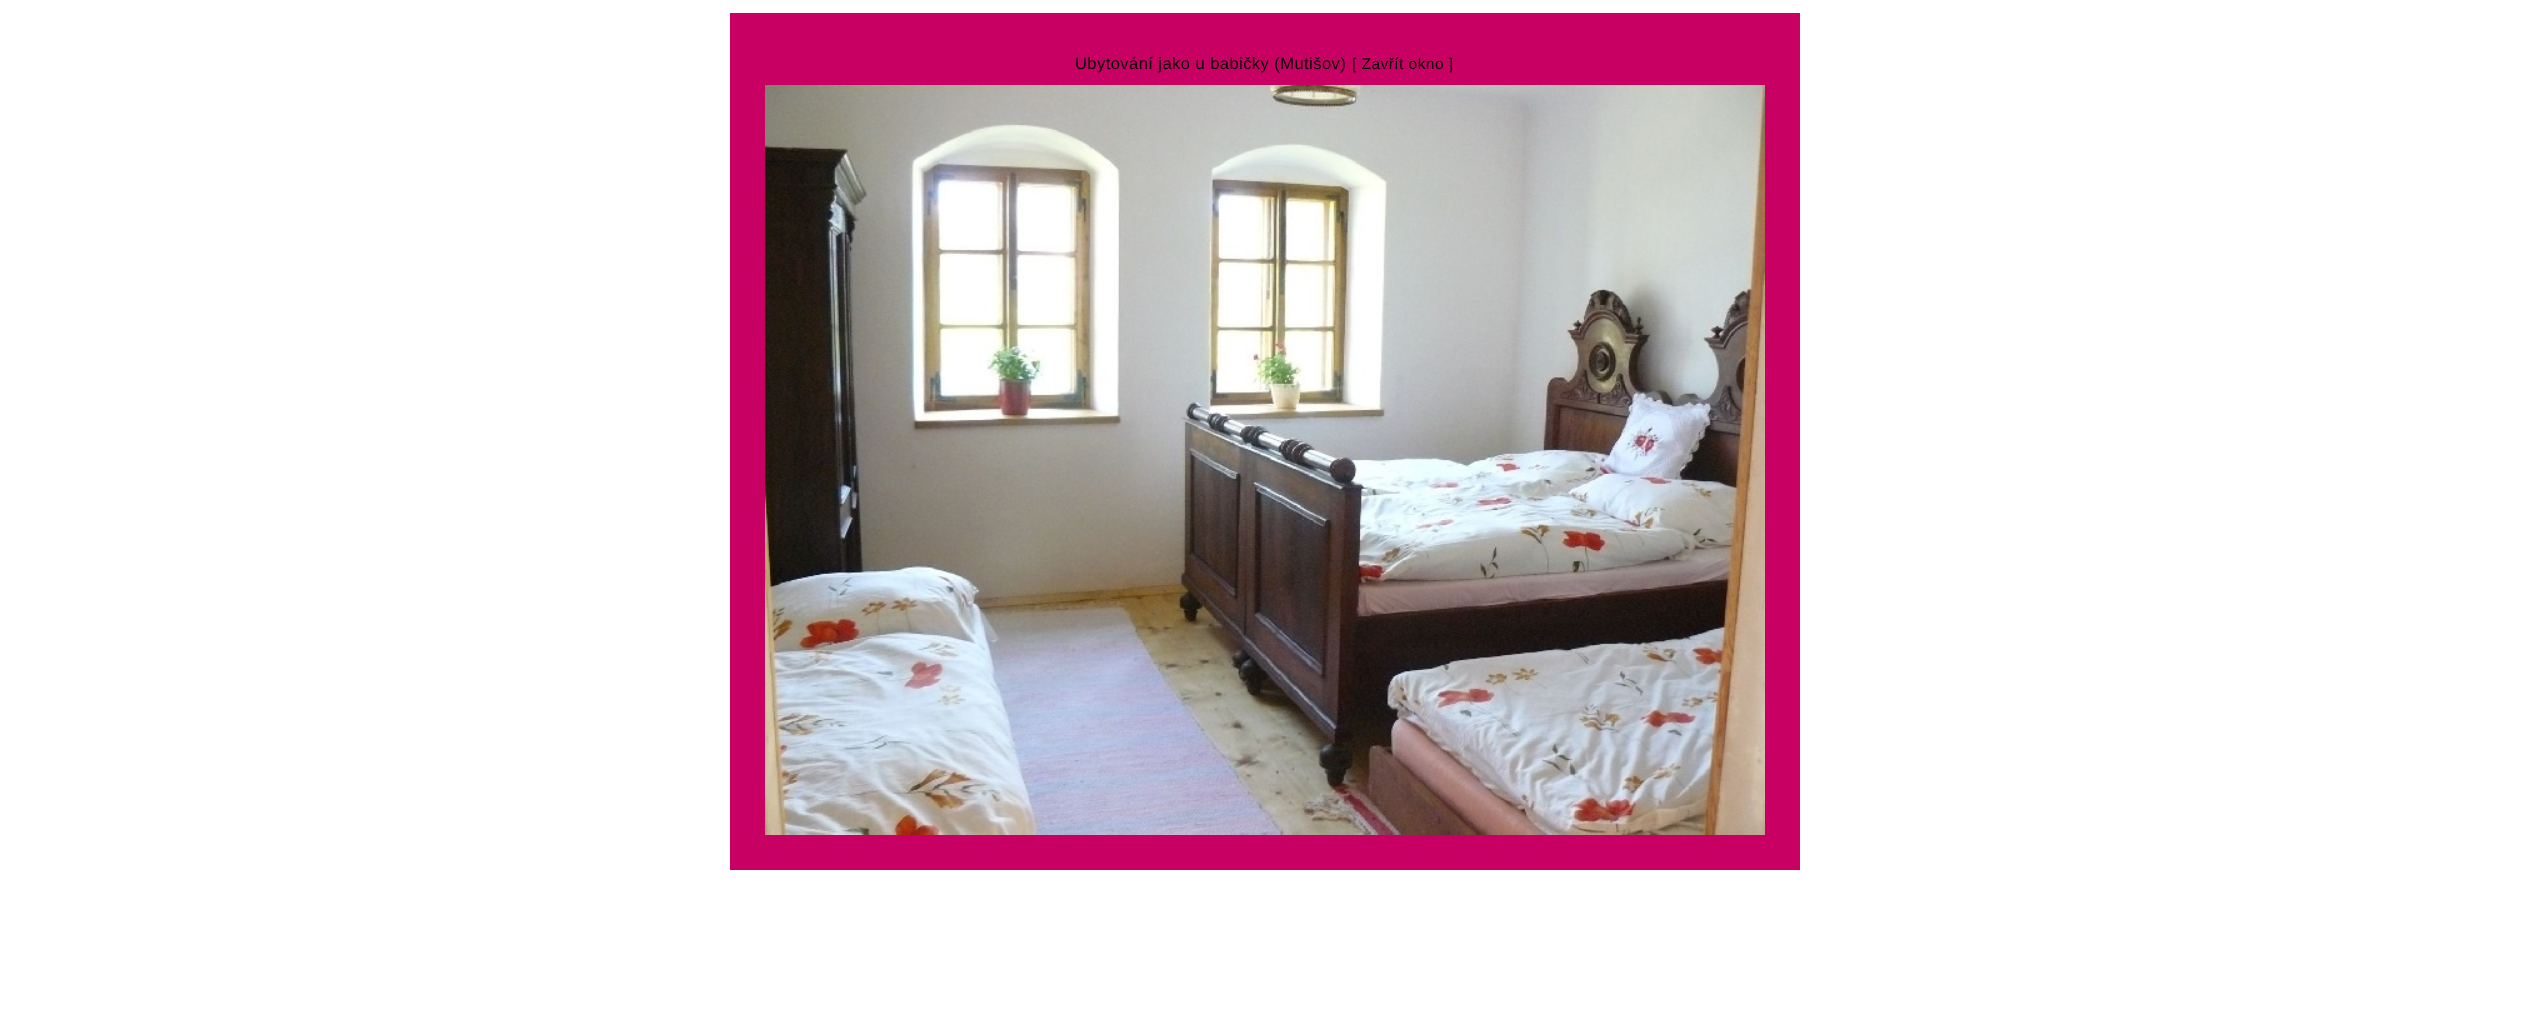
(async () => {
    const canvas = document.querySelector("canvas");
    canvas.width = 2529;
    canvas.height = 1016;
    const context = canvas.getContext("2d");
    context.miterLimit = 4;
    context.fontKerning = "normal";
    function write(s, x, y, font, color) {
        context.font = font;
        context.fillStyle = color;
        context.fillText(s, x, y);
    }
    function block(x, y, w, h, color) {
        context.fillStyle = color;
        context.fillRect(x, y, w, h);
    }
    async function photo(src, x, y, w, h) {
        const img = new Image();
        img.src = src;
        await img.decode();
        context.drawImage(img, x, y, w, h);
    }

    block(0, 0, 2529, 1016, "rgb(255, 255, 255)");
    block(730, 13, 1070, 857, "rgb(200, 0, 100)");
    context.letterSpacing = "0.45px";
    write("Ubytování jako u babičky (Mutišov)", 1075, 69, "16.5px Liberation Sans", "rgb(0, 0, 0)");
    write("[ Zavřít okno ]", 1352, 69, "15.5px Liberation Sans", "rgb(0, 0, 0)");
    await photo("media/1.png", 765, 85, 1000, 750);
})();
